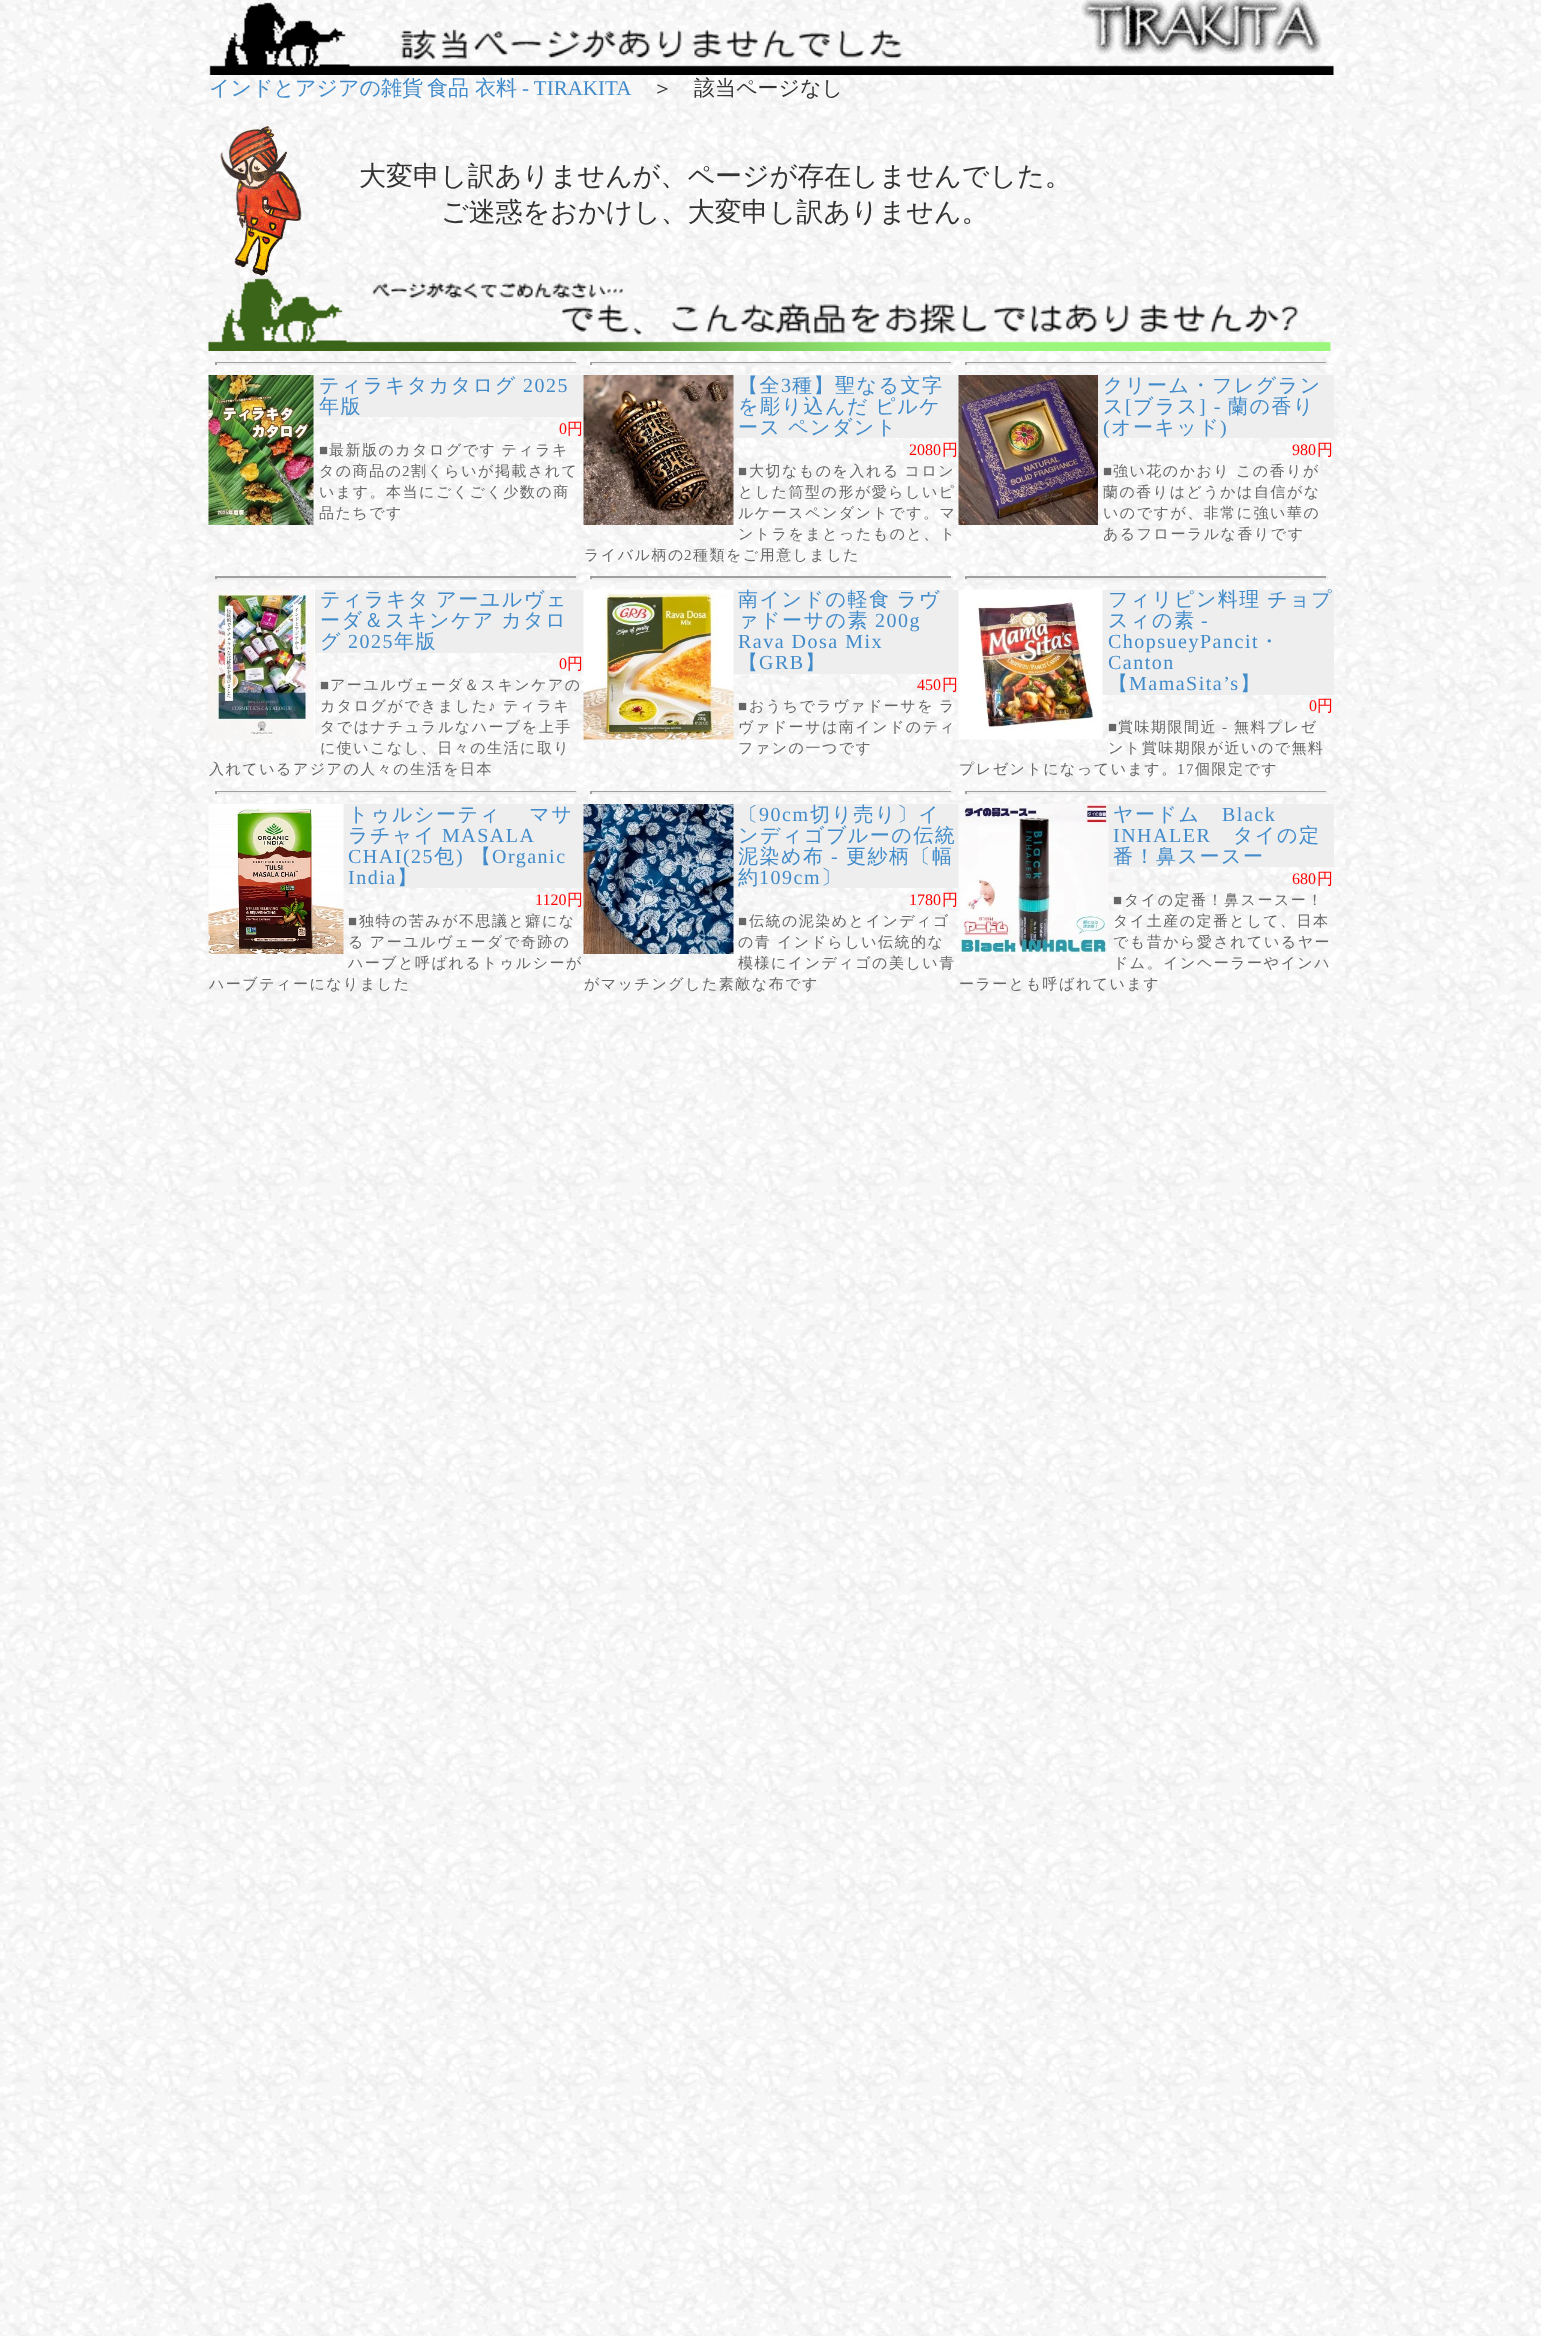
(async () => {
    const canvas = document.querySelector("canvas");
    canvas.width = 1541;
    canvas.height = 2336;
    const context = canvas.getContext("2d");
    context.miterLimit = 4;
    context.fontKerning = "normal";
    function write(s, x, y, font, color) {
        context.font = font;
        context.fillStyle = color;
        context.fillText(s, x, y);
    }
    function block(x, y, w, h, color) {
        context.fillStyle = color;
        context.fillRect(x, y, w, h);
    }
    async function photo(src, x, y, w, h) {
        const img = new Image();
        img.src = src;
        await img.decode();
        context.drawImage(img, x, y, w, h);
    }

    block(0, 0, 1541, 2336, "rgb(255, 255, 255)");
    await photo("media/1.png", 0, 0, 1541, 2336);
    await photo("media/2.png", 209, 0, 1125, 75);
    write("インドとアジアの雑貨", 209, 95, "500 21px WenQuanYi Zen Hei", "rgb(66, 139, 202)");
    write("食品", 427, 95, "500 21px WenQuanYi Zen Hei", "rgb(66, 139, 202)");
    write("衣料", 475, 95, "500 21px WenQuanYi Zen Hei", "rgb(66, 139, 202)");
    write("- TIRAKITA", 522, 95, "21px Liberation Serif", "rgb(66, 139, 202)");
    write("＞　該当ページなし", 652, 95, "500 21px WenQuanYi Zen Hei", "rgb(51, 51, 51)");
    await photo("media/3.png", 220, 126, 82, 150);
    write("大変申し訳ありませんが、ページが存在しませんでした。", 359, 185, "500 27px WenQuanYi Zen Hei", "rgb(51, 51, 51)");
    write("ご迷惑をおかけし、大変申し訳ありません。", 441, 221, "500 27px WenQuanYi Zen Hei", "rgb(51, 51, 51)");
    await photo("media/4.png", 208, 278, 1123, 73);
    block(215, 362, 363, 1, "rgb(159, 159, 159)");
    block(576, 362, 2, 3, "rgb(238, 238, 238)");
    block(215, 363, 363, 2, "rgb(238, 238, 238)");
    block(215, 362, 2, 3, "rgb(159, 159, 159)");
    block(313, 375, 271, 42, "rgb(238, 238, 238)");
    await photo("media/5.png", 208, 375, 106, 150);
    context.letterSpacing = "1.5px";
    write("ティラキタカタログ", 319, 392, "500 20px WenQuanYi Zen Hei", "rgb(66, 139, 202)");
    write("2025", 523, 392, "20px Liberation Serif", "rgb(66, 139, 202)");
    write("年版", 319, 413, "500 20px WenQuanYi Zen Hei", "rgb(66, 139, 202)");
    context.letterSpacing = "0px";
    write("0", 559, 434, "16px Liberation Serif", "rgb(255, 0, 0)");
    write("円", 567, 434, "500 16px WenQuanYi Zen Hei", "rgb(255, 0, 0)");
    context.letterSpacing = "1.5px";
    write("■", 319, 455, "15px Liberation Serif", "rgb(102, 102, 102)");
    context.wordSpacing = "-1px";
    write("最新版のカタログです ティラキ", 329, 455, "500 15px WenQuanYi Zen Hei", "rgb(102, 102, 102)");
    context.wordSpacing = "0px";
    write("タの商品の", 319, 476, "500 15px WenQuanYi Zen Hei", "rgb(102, 102, 102)");
    write("2", 402, 476, "15px Liberation Serif", "rgb(102, 102, 102)");
    write("割くらいが掲載されて", 411, 476, "500 15px WenQuanYi Zen Hei", "rgb(102, 102, 102)");
    write("います。本当にごくごく少数の商", 319, 497, "500 15px WenQuanYi Zen Hei", "rgb(102, 102, 102)");
    write("品たちです", 319, 518, "500 15px WenQuanYi Zen Hei", "rgb(102, 102, 102)");
    block(590, 362, 363, 1, "rgb(159, 159, 159)");
    block(951, 362, 2, 3, "rgb(238, 238, 238)");
    block(590, 363, 363, 2, "rgb(238, 238, 238)");
    block(590, 362, 2, 3, "rgb(159, 159, 159)");
    block(733, 375, 226, 63, "rgb(238, 238, 238)");
    await photo("media/6.png", 583, 375, 151, 150);
    write("【全", 738, 392, "500 20px WenQuanYi Zen Hei", "rgb(66, 139, 202)");
    write("3", 781, 392, "20px Liberation Serif", "rgb(66, 139, 202)");
    write("種】聖なる文字", 792, 392, "500 20px WenQuanYi Zen Hei", "rgb(66, 139, 202)");
    context.wordSpacing = "-1px";
    write("を彫り込んだ ピルケ", 738, 413, "500 20px WenQuanYi Zen Hei", "rgb(66, 139, 202)");
    write("ース ペンダント", 738, 434, "500 20px WenQuanYi Zen Hei", "rgb(66, 139, 202)");
    context.letterSpacing = "0px";
    context.wordSpacing = "0px";
    write("2080", 909, 455, "16px Liberation Serif", "rgb(255, 0, 0)");
    write("円", 942, 455, "500 16px WenQuanYi Zen Hei", "rgb(255, 0, 0)");
    context.letterSpacing = "1.5px";
    write("■", 738, 476, "15px Liberation Serif", "rgb(102, 102, 102)");
    context.wordSpacing = "-1px";
    write("大切なものを入れる コロン", 749, 476, "500 15px WenQuanYi Zen Hei", "rgb(102, 102, 102)");
    context.wordSpacing = "0px";
    write("とした筒型の形が愛らしいピ", 738, 497, "500 15px WenQuanYi Zen Hei", "rgb(102, 102, 102)");
    write("ルケースペンダントです。マ", 738, 518, "500 15px WenQuanYi Zen Hei", "rgb(102, 102, 102)");
    write("ントラをまとったものと、ト", 738, 539, "500 15px WenQuanYi Zen Hei", "rgb(102, 102, 102)");
    write("ライバル柄の", 584, 560, "500 15px WenQuanYi Zen Hei", "rgb(102, 102, 102)");
    write("2", 684, 560, "15px Liberation Serif", "rgb(102, 102, 102)");
    write("種類をご用意しました", 693, 560, "500 15px WenQuanYi Zen Hei", "rgb(102, 102, 102)");
    block(965, 362, 363, 1, "rgb(159, 159, 159)");
    block(1326, 362, 2, 3, "rgb(238, 238, 238)");
    block(965, 363, 363, 2, "rgb(238, 238, 238)");
    block(965, 362, 2, 3, "rgb(159, 159, 159)");
    await photo("media/7.png", 958, 375, 140, 150);
    block(1098, 375, 236, 63, "rgb(238, 238, 238)");
    write("クリーム・フレグラン", 1103, 392, "500 20px WenQuanYi Zen Hei", "rgb(66, 139, 202)");
    write("ス", 1103, 413, "500 20px WenQuanYi Zen Hei", "rgb(66, 139, 202)");
    write("[", 1125, 413, "20px Liberation Serif", "rgb(66, 139, 202)");
    write("ブラス", 1133, 413, "500 20px WenQuanYi Zen Hei", "rgb(66, 139, 202)");
    write("] -", 1199, 413, "20px Liberation Serif", "rgb(66, 139, 202)");
    write("蘭の香り", 1228, 413, "500 20px WenQuanYi Zen Hei", "rgb(66, 139, 202)");
    write("(", 1103, 434, "20px Liberation Serif", "rgb(66, 139, 202)");
    write("オーキッド", 1111, 434, "500 20px WenQuanYi Zen Hei", "rgb(66, 139, 202)");
    write(")", 1220, 434, "20px Liberation Serif", "rgb(66, 139, 202)");
    context.letterSpacing = "0px";
    write("980", 1292, 455, "16px Liberation Serif", "rgb(255, 0, 0)");
    write("円", 1317, 455, "500 16px WenQuanYi Zen Hei", "rgb(255, 0, 0)");
    context.letterSpacing = "1.5px";
    write("■", 1103, 476, "15px Liberation Serif", "rgb(102, 102, 102)");
    write("強い花のかおり", 1113, 476, "500 15px WenQuanYi Zen Hei", "rgb(102, 102, 102)");
    write("この香りが", 1236, 476, "500 15px WenQuanYi Zen Hei", "rgb(102, 102, 102)");
    write("蘭の香りはどうかは自信がな", 1103, 497, "500 15px WenQuanYi Zen Hei", "rgb(102, 102, 102)");
    write("いのですが、非常に強い華の", 1103, 518, "500 15px WenQuanYi Zen Hei", "rgb(102, 102, 102)");
    write("あるフローラルな香りです", 1103, 539, "500 15px WenQuanYi Zen Hei", "rgb(102, 102, 102)");
    block(215, 576, 363, 2, "rgb(159, 159, 159)");
    block(576, 576, 2, 3, "rgb(238, 238, 238)");
    block(215, 578, 363, 2, "rgb(238, 238, 238)");
    block(215, 576, 2, 3, "rgb(159, 159, 159)");
    await photo("media/8.png", 208, 589, 107, 151);
    block(315, 590, 269, 63, "rgb(238, 238, 238)");
    context.wordSpacing = "-1px";
    write("ティラキタ アーユルヴェ", 320, 606, "500 20px WenQuanYi Zen Hei", "rgb(66, 139, 202)");
    write("ーダ＆スキンケア カタロ", 320, 627, "500 20px WenQuanYi Zen Hei", "rgb(66, 139, 202)");
    context.wordSpacing = "0px";
    write("グ", 320, 648, "500 20px WenQuanYi Zen Hei", "rgb(66, 139, 202)");
    write("2025", 348, 648, "20px Liberation Serif", "rgb(66, 139, 202)");
    write("年版", 394, 648, "500 20px WenQuanYi Zen Hei", "rgb(66, 139, 202)");
    context.letterSpacing = "0px";
    write("0", 559, 669, "16px Liberation Serif", "rgb(255, 0, 0)");
    write("円", 567, 669, "500 16px WenQuanYi Zen Hei", "rgb(255, 0, 0)");
    context.letterSpacing = "1.5px";
    write("■", 320, 690, "15px Liberation Serif", "rgb(102, 102, 102)");
    write("アーユルヴェーダ＆スキンケアの", 330, 690, "500 15px WenQuanYi Zen Hei", "rgb(102, 102, 102)");
    write("カタログができました", 320, 711, "500 15px WenQuanYi Zen Hei", "rgb(102, 102, 102)");
    write("♪", 488, 711, "15px Liberation Serif", "rgb(102, 102, 102)");
    write("ティラキ", 503, 711, "500 15px WenQuanYi Zen Hei", "rgb(102, 102, 102)");
    write("タではナチュラルなハーブを上手", 320, 732, "500 15px WenQuanYi Zen Hei", "rgb(102, 102, 102)");
    write("に使いこなし、日々の生活に取り", 320, 753, "500 15px WenQuanYi Zen Hei", "rgb(102, 102, 102)");
    write("入れているアジアの人々の生活を日本", 209, 774, "500 15px WenQuanYi Zen Hei", "rgb(102, 102, 102)");
    block(590, 576, 363, 2, "rgb(159, 159, 159)");
    block(951, 576, 2, 3, "rgb(238, 238, 238)");
    block(590, 578, 363, 2, "rgb(238, 238, 238)");
    block(590, 576, 2, 3, "rgb(159, 159, 159)");
    block(733, 590, 226, 84, "rgb(238, 238, 238)");
    await photo("media/9.png", 583, 589, 151, 151);
    context.wordSpacing = "-1px";
    write("南インドの軽食 ラヴ", 738, 606, "500 20px WenQuanYi Zen Hei", "rgb(66, 139, 202)");
    context.wordSpacing = "0px";
    write("ァドーサの素", 738, 627, "500 20px WenQuanYi Zen Hei", "rgb(66, 139, 202)");
    write("200g", 875, 627, "20px Liberation Serif", "rgb(66, 139, 202)");
    write("Rava Dosa Mix", 738, 648, "20px Liberation Serif", "rgb(66, 139, 202)");
    write("【", 738, 669, "500 20px WenQuanYi Zen Hei", "rgb(66, 139, 202)");
    write("GRB", 759, 669, "20px Liberation Serif", "rgb(66, 139, 202)");
    write("】", 805, 669, "500 20px WenQuanYi Zen Hei", "rgb(66, 139, 202)");
    context.letterSpacing = "0px";
    write("450", 917, 690, "16px Liberation Serif", "rgb(255, 0, 0)");
    write("円", 942, 690, "500 16px WenQuanYi Zen Hei", "rgb(255, 0, 0)");
    context.letterSpacing = "1.5px";
    write("■", 738, 711, "15px Liberation Serif", "rgb(102, 102, 102)");
    context.wordSpacing = "-1px";
    write("おうちでラヴァドーサを ラ", 749, 711, "500 15px WenQuanYi Zen Hei", "rgb(102, 102, 102)");
    context.wordSpacing = "0px";
    write("ヴァドーサは南インドのティ", 738, 732, "500 15px WenQuanYi Zen Hei", "rgb(102, 102, 102)");
    write("ファンの一つです", 738, 753, "500 15px WenQuanYi Zen Hei", "rgb(102, 102, 102)");
    block(965, 576, 363, 2, "rgb(159, 159, 159)");
    block(1326, 576, 2, 3, "rgb(238, 238, 238)");
    block(965, 578, 363, 2, "rgb(238, 238, 238)");
    block(965, 576, 2, 3, "rgb(159, 159, 159)");
    block(1102, 590, 232, 105, "rgb(238, 238, 238)");
    await photo("media/10.png", 958, 589, 145, 151);
    context.wordSpacing = "-1px";
    write("フィリピン料理 チョプ", 1108, 606, "500 20px WenQuanYi Zen Hei", "rgb(66, 139, 202)");
    context.wordSpacing = "0px";
    write("スィの素", 1108, 627, "500 20px WenQuanYi Zen Hei", "rgb(66, 139, 202)");
    write("-", 1201, 627, "20px Liberation Serif", "rgb(66, 139, 202)");
    write("ChopsueyPancit", 1108, 648, "20px Liberation Serif", "rgb(66, 139, 202)");
    write("・", 1259, 648, "500 20px WenQuanYi Zen Hei", "rgb(66, 139, 202)");
    write("Canton", 1108, 669, "20px Liberation Serif", "rgb(66, 139, 202)");
    write("【", 1108, 690, "500 20px WenQuanYi Zen Hei", "rgb(66, 139, 202)");
    write("MamaSita’s", 1129, 690, "20px Liberation Serif", "rgb(66, 139, 202)");
    write("】", 1240, 690, "500 20px WenQuanYi Zen Hei", "rgb(66, 139, 202)");
    context.letterSpacing = "0px";
    write("0", 1309, 711, "16px Liberation Serif", "rgb(255, 0, 0)");
    write("円", 1317, 711, "500 16px WenQuanYi Zen Hei", "rgb(255, 0, 0)");
    context.letterSpacing = "1.5px";
    write("■", 1108, 732, "15px Liberation Serif", "rgb(102, 102, 102)");
    write("賞味期限間近", 1118, 732, "500 15px WenQuanYi Zen Hei", "rgb(102, 102, 102)");
    write("-", 1222, 732, "15px Liberation Serif", "rgb(102, 102, 102)");
    write("無料プレゼ", 1234, 732, "500 15px WenQuanYi Zen Hei", "rgb(102, 102, 102)");
    write("ント賞味期限が近いので無料", 1108, 753, "500 15px WenQuanYi Zen Hei", "rgb(102, 102, 102)");
    write("プレゼントになっています。", 959, 774, "500 15px WenQuanYi Zen Hei", "rgb(102, 102, 102)");
    write("17", 1177, 774, "15px Liberation Serif", "rgb(102, 102, 102)");
    write("個限定です", 1195, 774, "500 15px WenQuanYi Zen Hei", "rgb(102, 102, 102)");
    block(215, 791, 363, 1, "rgb(159, 159, 159)");
    block(576, 791, 2, 3, "rgb(238, 238, 238)");
    block(215, 792, 363, 2, "rgb(238, 238, 238)");
    block(215, 791, 2, 3, "rgb(159, 159, 159)");
    block(343, 804, 241, 84, "rgb(238, 238, 238)");
    await photo("media/11.png", 208, 804, 136, 150);
    context.wordSpacing = "-1px";
    write("トゥルシーティ　 マサ", 348, 821, "500 20px WenQuanYi Zen Hei", "rgb(66, 139, 202)");
    context.wordSpacing = "0px";
    write("ラチャイ", 348, 842, "500 20px WenQuanYi Zen Hei", "rgb(66, 139, 202)");
    write("MASALA", 442, 842, "20px Liberation Serif", "rgb(66, 139, 202)");
    write("CHAI(25", 348, 863, "20px Liberation Serif", "rgb(66, 139, 202)");
    write("包", 434, 863, "500 20px WenQuanYi Zen Hei", "rgb(66, 139, 202)");
    write(")", 456, 863, "20px Liberation Serif", "rgb(66, 139, 202)");
    write("【", 471, 863, "500 20px WenQuanYi Zen Hei", "rgb(66, 139, 202)");
    write("Organic", 492, 863, "20px Liberation Serif", "rgb(66, 139, 202)");
    write("India", 348, 884, "20px Liberation Serif", "rgb(66, 139, 202)");
    write("】", 397, 884, "500 20px WenQuanYi Zen Hei", "rgb(66, 139, 202)");
    context.letterSpacing = "0px";
    write("1120", 535, 905, "16px Liberation Serif", "rgb(255, 0, 0)");
    write("円", 567, 905, "500 16px WenQuanYi Zen Hei", "rgb(255, 0, 0)");
    context.letterSpacing = "1.5px";
    write("■", 348, 926, "15px Liberation Serif", "rgb(102, 102, 102)");
    write("独特の苦みが不思議と癖にな", 359, 926, "500 15px WenQuanYi Zen Hei", "rgb(102, 102, 102)");
    context.wordSpacing = "-1px";
    write("る アーユルヴェーダで奇跡の", 348, 947, "500 15px WenQuanYi Zen Hei", "rgb(102, 102, 102)");
    context.wordSpacing = "0px";
    write("ハーブと呼ばれるトゥルシーが", 348, 968, "500 15px WenQuanYi Zen Hei", "rgb(102, 102, 102)");
    write("ハーブティーになりました", 209, 989, "500 15px WenQuanYi Zen Hei", "rgb(102, 102, 102)");
    block(590, 791, 363, 1, "rgb(159, 159, 159)");
    block(951, 791, 2, 3, "rgb(238, 238, 238)");
    block(590, 792, 363, 2, "rgb(238, 238, 238)");
    block(590, 791, 2, 3, "rgb(159, 159, 159)");
    block(733, 804, 226, 84, "rgb(238, 238, 238)");
    await photo("media/12.png", 583, 804, 151, 150);
    write("〔", 738, 821, "500 20px WenQuanYi Zen Hei", "rgb(66, 139, 202)");
    write("90cm", 759, 821, "20px Liberation Serif", "rgb(66, 139, 202)");
    write("切り売り〕イ", 810, 821, "500 20px WenQuanYi Zen Hei", "rgb(66, 139, 202)");
    write("ンディゴブルーの伝統", 738, 842, "500 20px WenQuanYi Zen Hei", "rgb(66, 139, 202)");
    write("泥染め布", 738, 863, "500 20px WenQuanYi Zen Hei", "rgb(66, 139, 202)");
    write("-", 831, 863, "20px Liberation Serif", "rgb(66, 139, 202)");
    write("更紗柄〔幅", 846, 863, "500 20px WenQuanYi Zen Hei", "rgb(66, 139, 202)");
    write("約", 738, 884, "500 20px WenQuanYi Zen Hei", "rgb(66, 139, 202)");
    write("109cm", 759, 884, "20px Liberation Serif", "rgb(66, 139, 202)");
    write("〕", 821, 884, "500 20px WenQuanYi Zen Hei", "rgb(66, 139, 202)");
    context.letterSpacing = "0px";
    write("1780", 909, 905, "16px Liberation Serif", "rgb(255, 0, 0)");
    write("円", 942, 905, "500 16px WenQuanYi Zen Hei", "rgb(255, 0, 0)");
    context.letterSpacing = "1.5px";
    write("■", 738, 926, "15px Liberation Serif", "rgb(102, 102, 102)");
    write("伝統の泥染めとインディゴ", 749, 926, "500 15px WenQuanYi Zen Hei", "rgb(102, 102, 102)");
    write("の青", 738, 947, "500 15px WenQuanYi Zen Hei", "rgb(102, 102, 102)");
    write("インドらしい伝統的な", 777, 947, "500 15px WenQuanYi Zen Hei", "rgb(102, 102, 102)");
    write("模様にインディゴの美しい青", 738, 968, "500 15px WenQuanYi Zen Hei", "rgb(102, 102, 102)");
    write("がマッチングした素敵な布です", 584, 989, "500 15px WenQuanYi Zen Hei", "rgb(102, 102, 102)");
    block(965, 791, 363, 1, "rgb(159, 159, 159)");
    block(1326, 791, 2, 3, "rgb(238, 238, 238)");
    block(965, 792, 363, 2, "rgb(238, 238, 238)");
    block(965, 791, 2, 3, "rgb(159, 159, 159)");
    block(1108, 804, 226, 63, "rgb(238, 238, 238)");
    await photo("media/13.png", 958, 804, 151, 150);
    write("ヤードム", 1113, 821, "500 20px WenQuanYi Zen Hei", "rgb(66, 139, 202)");
    write("Black", 1222, 821, "20px Liberation Serif", "rgb(66, 139, 202)");
    write("INHALER", 1113, 842, "20px Liberation Serif", "rgb(66, 139, 202)");
    write("タイの定", 1233, 842, "500 20px WenQuanYi Zen Hei", "rgb(66, 139, 202)");
    write("番！鼻スースー", 1113, 863, "500 20px WenQuanYi Zen Hei", "rgb(66, 139, 202)");
    context.letterSpacing = "0px";
    write("680", 1292, 884, "16px Liberation Serif", "rgb(255, 0, 0)");
    write("円", 1317, 884, "500 16px WenQuanYi Zen Hei", "rgb(255, 0, 0)");
    context.letterSpacing = "1.5px";
    write("■", 1113, 905, "15px Liberation Serif", "rgb(102, 102, 102)");
    write("タイの定番！鼻スースー！", 1124, 905, "500 15px WenQuanYi Zen Hei", "rgb(102, 102, 102)");
    write("タイ土産の定番として、日本", 1113, 926, "500 15px WenQuanYi Zen Hei", "rgb(102, 102, 102)");
    write("でも昔から愛されているヤー", 1113, 947, "500 15px WenQuanYi Zen Hei", "rgb(102, 102, 102)");
    write("ドム。インヘーラーやインハ", 1113, 968, "500 15px WenQuanYi Zen Hei", "rgb(102, 102, 102)");
    write("ーラーとも呼ばれています", 959, 989, "500 15px WenQuanYi Zen Hei", "rgb(102, 102, 102)");
})();
